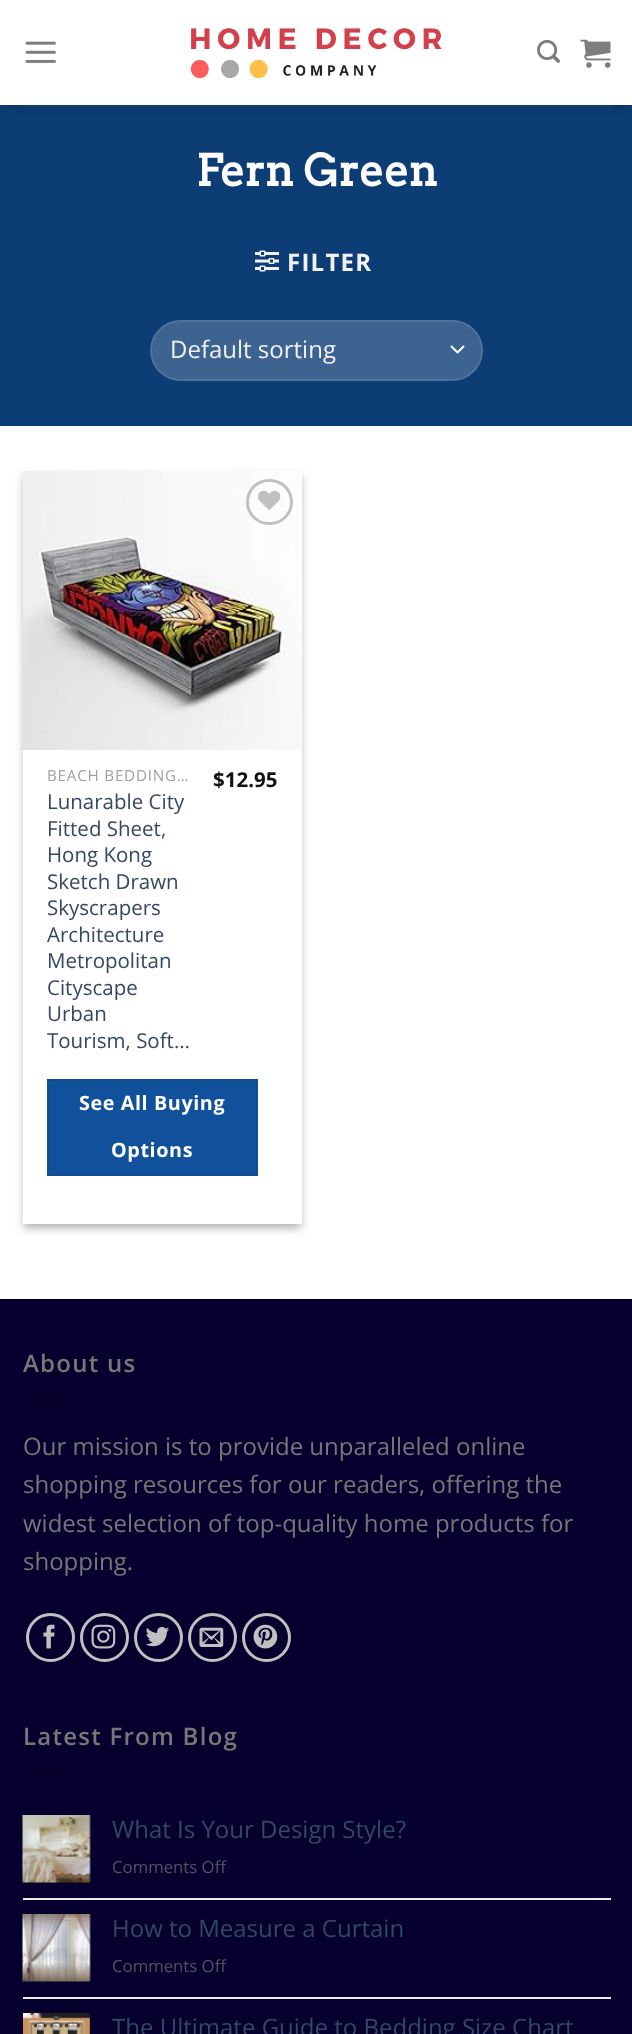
(async () => {
    const canvas = document.querySelector("canvas");
    canvas.width = 632;
    canvas.height = 2034;
    const context = canvas.getContext("2d");
    context.miterLimit = 4;
    context.fontKerning = "normal";
    function write(s, x, y, font, color) {
        context.font = font;
        context.fillStyle = color;
        context.fillText(s, x, y);
    }
    function block(x, y, w, h, color) {
        context.fillStyle = color;
        context.fillRect(x, y, w, h);
    }
    function card(x, y, w, h, r, color) {
        context.fillStyle = color;
        context.beginPath();
        context.roundRect(x, y, w, h, r);
        context.fill();
    }
    async function photo(src, x, y, w, h) {
        const img = new Image();
        img.src = src;
        await img.decode();
        context.drawImage(img, x, y, w, h);
    }

    block(0, 0, 632, 2034, "rgb(255, 255, 255)");
    block(0, 105, 632, 321, "rgb(13, 61, 117)");
    context.save();
    context.beginPath();
    context.rect(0, 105, 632, 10);
    context.clip();
    context.fillStyle = "rgba(0, 0, 0, 0.15)";
    context.filter = "blur(7.5px)";
    context.beginPath();
    context.rect(2, 2, 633, 105);
    context.fill();
    context.filter = "none";
    context.restore();
    await photo("media/1.png", 25, 41, 31, 22);
    await photo("media/2.png", 190, 28, 252, 50);
    await photo("media/3.png", 537, 39, 23, 24);
    await photo("media/4.png", 580, 39, 31, 29);
    block(23, 105, 588, 2, "rgb(23, 62, 108)");
    write("Fern Green", 196, 186, "bold 43.25px Arvo", "rgb(255, 255, 255)");
    await photo("media/5.png", 255, 250, 24, 22);
    context.letterSpacing = "1.25px";
    write("FILTER", 287, 271, "bold 24px Open Sans", "rgb(241, 241, 241)");
    card(150, 320, 333, 61, 30.5, "rgb(61, 100, 145)");
    context.beginPath();
    context.moveTo(451.5, 346.5);
    context.lineTo(457.5, 352.5);
    context.lineTo(463.5, 346.5);
    context.strokeStyle = "rgb(255, 255, 255)";
    context.lineWidth = 2;
    context.lineCap = "round";
    context.lineJoin = "round";
    context.stroke();
    context.beginPath();
    context.roundRect(151, 321, 331, 59, 29.5);
    context.strokeStyle = "rgba(255, 255, 255, 0.09)";
    context.lineJoin = "miter";
    context.stroke();
    context.letterSpacing = "0px";
    write("Default sorting", 170, 358, "24px Open Sans", "rgb(241, 241, 241)");
    context.fillStyle = "rgba(0, 0, 0, 0.23)";
    context.filter = "blur(4.5px)";
    context.beginPath();
    context.rect(23, 476, 279, 753);
    context.fill();
    context.filter = "none";
    context.fillStyle = "rgba(0, 0, 0, 0.16)";
    context.filter = "blur(4.5px)";
    context.beginPath();
    context.rect(29, 482, 267, 741);
    context.fill();
    context.filter = "none";
    block(23, 471, 279, 753, "rgb(255, 255, 255)");
    await photo("media/6.png", 23, 471, 278, 279);
    context.beginPath();
    context.roundRect(247.5, 480.5, 44, 43, 21.5);
    context.strokeStyle = "rgb(192, 192, 192)";
    context.lineWidth = 3;
    context.stroke();
    await photo("media/7.png", 258, 490, 23, 20);
    context.letterSpacing = "0.75px";
    write("BEACH BEDDING…", 47, 781, "15.25px Open Sans", "rgb(160, 160, 160)");
    context.letterSpacing = "0px";
    write("Lunarable City", 47, 809, "20.5px Open Sans", "rgb(51, 72, 98)");
    write("Fitted Sheet,", 47, 836, "20.5px Open Sans", "rgb(51, 72, 98)");
    write("Hong Kong", 47, 862, "20.5px Open Sans", "rgb(51, 72, 98)");
    write("Sketch Drawn", 47, 889, "20.5px Open Sans", "rgb(51, 72, 98)");
    write("Skyscrapers", 47, 915, "20.5px Open Sans", "rgb(51, 72, 98)");
    write("Architecture", 47, 942, "20.5px Open Sans", "rgb(51, 72, 98)");
    write("Metropolitan", 47, 968, "20.5px Open Sans", "rgb(51, 72, 98)");
    write("Cityscape", 47, 995, "20.5px Open Sans", "rgb(51, 72, 98)");
    write("Urban", 47, 1021, "20.5px Open Sans", "rgb(51, 72, 98)");
    write("Tourism, Soft…", 47, 1048, "20.5px Open Sans", "rgb(51, 72, 98)");
    write("$12.95", 213, 787, "bold 20.5px Open Sans", "rgb(17, 17, 17)");
    context.fillStyle = "rgb(17, 81, 155)";
    context.beginPath();
    context.rect(48, 1080, 209, 95);
    context.fill();
    context.strokeStyle = "rgb(16, 77, 147)";
    context.lineWidth = 2;
    context.stroke();
    context.letterSpacing = "0.6px";
    write("See All Buying", 79, 1110, "bold 19.75px Open Sans", "rgb(255, 255, 255)");
    write("Options", 111, 1157, "bold 19.75px Open Sans", "rgb(255, 255, 255)");
    block(0, 1301, 632, 733, "rgb(5, 0, 45)");
    block(0, 1299, 632, 2, "rgb(5, 0, 43)");
    context.letterSpacing = "1.25px";
    write("About us", 23, 1372, "600 24px Open Sans", "rgb(119, 119, 119)");
    block(23, 1400, 45, 5, "rgb(5, 0, 41)");
    context.letterSpacing = "0px";
    write("Our mission is to provide unparalleled online", 23, 1455, "24px Open Sans", "rgb(119, 119, 119)");
    write("shopping resources for our readers, offering the", 23, 1493, "24px Open Sans", "rgb(119, 119, 119)");
    write("widest selection of top-quality home products for", 23, 1532, "24px Open Sans", "rgb(119, 119, 119)");
    write("shopping.", 23, 1570, "24px Open Sans", "rgb(119, 119, 119)");
    context.beginPath();
    context.arc(50.5, 1637.5, 23, 0, Math.PI * 2);
    context.strokeStyle = "rgb(192, 192, 192)";
    context.lineWidth = 3;
    context.stroke();
    await photo("media/8.png", 43, 1624, 12, 25);
    context.beginPath();
    context.arc(104.5, 1637.5, 23, 0, Math.PI * 2);
    context.stroke();
    await photo("media/9.png", 91, 1624, 25, 25);
    context.beginPath();
    context.arc(158.5, 1637.5, 23, 0, Math.PI * 2);
    context.stroke();
    await photo("media/10.png", 145, 1627, 25, 20);
    context.beginPath();
    context.arc(212.5, 1637.5, 23, 0, Math.PI * 2);
    context.stroke();
    await photo("media/11.png", 199, 1627, 25, 20);
    context.beginPath();
    context.arc(266.5, 1637.5, 23, 0, Math.PI * 2);
    context.stroke();
    await photo("media/12.png", 253, 1624, 25, 25);
    context.letterSpacing = "1.25px";
    write("Latest From Blog", 23, 1745, "600 24px Open Sans", "rgb(119, 119, 119)");
    block(23, 1772, 45, 5, "rgb(5, 0, 41)");
    await photo("media/13.png", 22, 1815, 69, 68);
    context.letterSpacing = "0px";
    write("What Is Your Design Style?", 112, 1838, "24px Open Sans", "rgb(51, 72, 98)");
    write("Comments Off", 112, 1873, "16.75px Open Sans", "rgb(85, 83, 97)");
    block(23, 1898, 588, 2, "rgb(236, 236, 236)");
    await photo("media/14.png", 22, 1914, 69, 68);
    write("How to Measure a Curtain", 112, 1937, "24px Open Sans", "rgb(51, 72, 98)");
    write("Comments Off", 112, 1972, "16.75px Open Sans", "rgb(85, 83, 97)");
    block(23, 1997, 588, 2, "rgb(236, 236, 236)");
    await photo("media/15.png", 23, 2013, 67, 21);
    write("The Ultimate Guide to Bedding Size Chart", 112, 2036, "24px Open Sans", "rgb(51, 72, 98)");
})();
